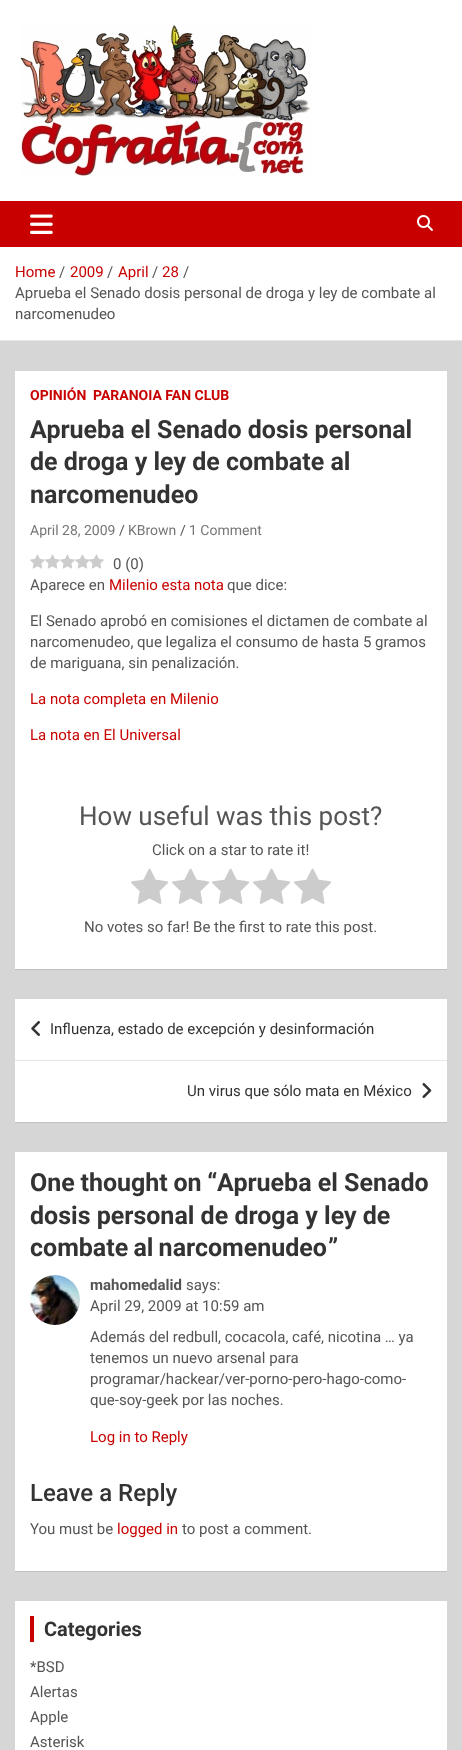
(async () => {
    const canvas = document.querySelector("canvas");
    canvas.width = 462;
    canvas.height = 1750;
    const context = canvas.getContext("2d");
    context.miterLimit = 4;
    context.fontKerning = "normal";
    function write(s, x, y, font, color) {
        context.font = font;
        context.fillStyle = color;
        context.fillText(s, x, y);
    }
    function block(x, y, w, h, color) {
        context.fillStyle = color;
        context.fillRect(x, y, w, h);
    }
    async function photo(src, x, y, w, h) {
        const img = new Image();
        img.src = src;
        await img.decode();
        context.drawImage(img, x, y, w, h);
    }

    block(0, 0, 462, 1750, "rgb(214, 214, 214)");
    block(0, 0, 462, 201, "rgb(255, 255, 255)");
    await photo("media/1.png", 20, 25, 291, 152);
    block(0, 201, 462, 46, "rgb(200, 0, 0)");
    await photo("media/2.png", 30, 214, 23, 20);
    await photo("media/3.png", 417, 215, 16, 16);
    block(0, 247, 462, 93, "rgb(255, 255, 255)");
    block(0, 340, 462, 1, "rgb(230, 230, 230)");
    write("Home", 15, 277, "15px Roboto", "rgb(200, 0, 0)");
    write("/", 59, 277, "15px Roboto", "rgb(85, 85, 85)");
    write("2009", 70, 277, "15px Roboto", "rgb(200, 0, 0)");
    write("/", 107, 277, "15px Roboto", "rgb(85, 85, 85)");
    write("April", 118, 277, "15px Roboto", "rgb(200, 0, 0)");
    write("/", 152, 277, "15px Roboto", "rgb(85, 85, 85)");
    write("28", 162, 277, "15px Roboto", "rgb(200, 0, 0)");
    write("/", 183, 277, "15px Roboto", "rgb(85, 85, 85)");
    write("Aprueba el Senado dosis personal de droga y ley de combate al", 15, 298, "15px Roboto", "rgb(85, 85, 85)");
    write("narcomenudeo", 15, 319, "15px Roboto", "rgb(85, 85, 85)");
    context.fillStyle = "rgba(0, 0, 0, 0.1)";
    context.filter = "blur(0.5px)";
    context.beginPath();
    context.rect(15, 372, 432, 598);
    context.fill();
    context.filter = "none";
    block(15, 371, 432, 598, "rgb(255, 255, 255)");
    write("OPINIÓN", 30, 400, "bold 14px Roboto", "rgb(200, 0, 0)");
    write("PARANOIA FAN CLUB", 93, 400, "bold 14px Roboto", "rgb(200, 0, 0)");
    write("Aprueba el Senado dosis personal", 30, 438, "bold 25px Roboto", "rgb(51, 51, 51)");
    write("de droga y ley de combate al", 30, 470, "bold 25px Roboto", "rgb(51, 51, 51)");
    write("narcomenudeo", 30, 503, "bold 25px Roboto", "rgb(51, 51, 51)");
    write("April 28, 2009", 30, 535, "14px Roboto", "rgb(119, 119, 119)");
    write("/", 119, 535, "14px Roboto", "rgb(85, 85, 85)");
    write("KBrown", 128, 535, "14px Roboto", "rgb(119, 119, 119)");
    write("/", 180, 535, "14px Roboto", "rgb(85, 85, 85)");
    write("1 Comment", 189, 535, "14px Roboto", "rgb(119, 119, 119)");
    await photo("media/4.png", 30, 554, 15, 15);
    await photo("media/4.png", 45, 554, 15, 15);
    await photo("media/4.png", 60, 554, 15, 15);
    await photo("media/4.png", 75, 554, 15, 15);
    await photo("media/5.png", 89, 554, 15, 15);
    write("0 (0)", 113, 569, "15px Roboto", "rgb(85, 85, 85)");
    write("Aparece en", 30, 590, "15px Roboto", "rgb(85, 85, 85)");
    write("Milenio esta nota", 109, 590, "15px Roboto", "rgb(200, 0, 0)");
    write("que dice:", 227, 590, "15px Roboto", "rgb(85, 85, 85)");
    write("El Senado aprobó en comisiones el dictamen de combate al", 30, 626, "15px Roboto", "rgb(85, 85, 85)");
    write("narcomenudeo, que legaliza el consumo de hasta 5 gramos", 30, 647, "15px Roboto", "rgb(85, 85, 85)");
    write("de mariguana, sin penalización.", 30, 668, "15px Roboto", "rgb(85, 85, 85)");
    write("La nota completa en Milenio", 30, 704, "15px Roboto", "rgb(200, 0, 0)");
    write("La nota en El Universal", 30, 740, "15px Roboto", "rgb(200, 0, 0)");
    write("How useful was this post?", 79, 825, "26px Roboto", "rgb(85, 85, 85)");
    write("Click on a star to rate it!", 152, 855, "15px Roboto", "rgb(85, 85, 85)");
    await photo("media/6.png", 131, 868, 37, 36);
    await photo("media/6.png", 172, 868, 37, 36);
    await photo("media/6.png", 212, 868, 37, 36);
    await photo("media/6.png", 253, 868, 37, 36);
    await photo("media/6.png", 294, 868, 37, 36);
    write("No votes so far! Be the first to rate this post.", 84, 932, "15px Roboto", "rgb(85, 85, 85)");
    context.fillStyle = "rgba(0, 0, 0, 0.1)";
    context.filter = "blur(0.5px)";
    context.beginPath();
    context.rect(15, 1000, 432, 123);
    context.fill();
    context.filter = "none";
    block(15, 999, 432, 123, "rgb(255, 255, 255)");
    block(15, 1060, 432, 1, "rgb(230, 230, 230)");
    await photo("media/7.png", 31, 1021, 9, 15);
    write("Influenza, estado de excepción y desinformación", 50, 1034, "15px Roboto", "rgb(51, 51, 51)");
    write("Un virus que sólo mata en México", 187, 1096, "15px Roboto", "rgb(51, 51, 51)");
    await photo("media/8.png", 422, 1083, 10, 15);
    context.fillStyle = "rgba(0, 0, 0, 0.1)";
    context.filter = "blur(0.5px)";
    context.beginPath();
    context.rect(15, 1153, 432, 419);
    context.fill();
    context.filter = "none";
    block(15, 1152, 432, 419, "rgb(255, 255, 255)");
    context.wordSpacing = "-0.5px";
    write("One thought on “", 30, 1191, "bold 25px Roboto", "rgb(51, 51, 51)");
    context.wordSpacing = "0px";
    write("Aprueba el Senado", 217, 1191, "bold 25px Roboto", "rgb(51, 51, 51)");
    write("dosis personal de droga y ley de", 30, 1224, "bold 25px Roboto", "rgb(51, 51, 51)");
    context.wordSpacing = "-1px";
    write("combate al narcomenudeo", 30, 1256, "bold 25px Roboto", "rgb(51, 51, 51)");
    context.wordSpacing = "0px";
    write("”", 328, 1256, "bold 25px Roboto", "rgb(51, 51, 51)");
    await photo("media/9.png", 30, 1275, 50, 50);
    write("mahomedalid", 90, 1290, "bold 15px Roboto", "rgb(85, 85, 85)");
    write("says:", 186, 1290, "15px Roboto", "rgb(85, 85, 85)");
    write("April 29, 2009 at 10:59 am", 90, 1311, "15px Roboto", "rgb(85, 85, 85)");
    write("Además del redbull, cocacola, café, nicotina … ya", 90, 1342, "15px Roboto", "rgb(85, 85, 85)");
    write("tenemos un nuevo arsenal para", 90, 1363, "15px Roboto", "rgb(85, 85, 85)");
    write("programar/hackear/ver-porno-pero-hago-como-", 90, 1384, "15px Roboto", "rgb(85, 85, 85)");
    write("que-soy-geek por las noches.", 90, 1405, "15px Roboto", "rgb(85, 85, 85)");
    write("Log in to Reply", 90, 1442, "15px Roboto", "rgb(200, 0, 0)");
    write("Leave a Reply", 30, 1501, "500 24px Roboto", "rgb(51, 51, 51)");
    write("You must be", 30, 1534, "15px Roboto", "rgb(85, 85, 85)");
    write("logged in", 117, 1534, "15px Roboto", "rgb(200, 0, 0)");
    write("to post a comment.", 182, 1534, "15px Roboto", "rgb(85, 85, 85)");
    block(15, 1601, 432, 149, "rgb(255, 255, 255)");
    block(30, 1616, 4, 26, "rgb(200, 0, 0)");
    write("Categories", 44, 1636, "bold 20px Roboto", "rgb(51, 51, 51)");
    write("*BSD", 30, 1672, "15px Roboto", "rgb(85, 85, 85)");
    write("Alertas", 30, 1697, "15px Roboto", "rgb(85, 85, 85)");
    write("Apple", 30, 1722, "15px Roboto", "rgb(85, 85, 85)");
    write("Asterisk", 30, 1747, "15px Roboto", "rgb(85, 85, 85)");
})();
